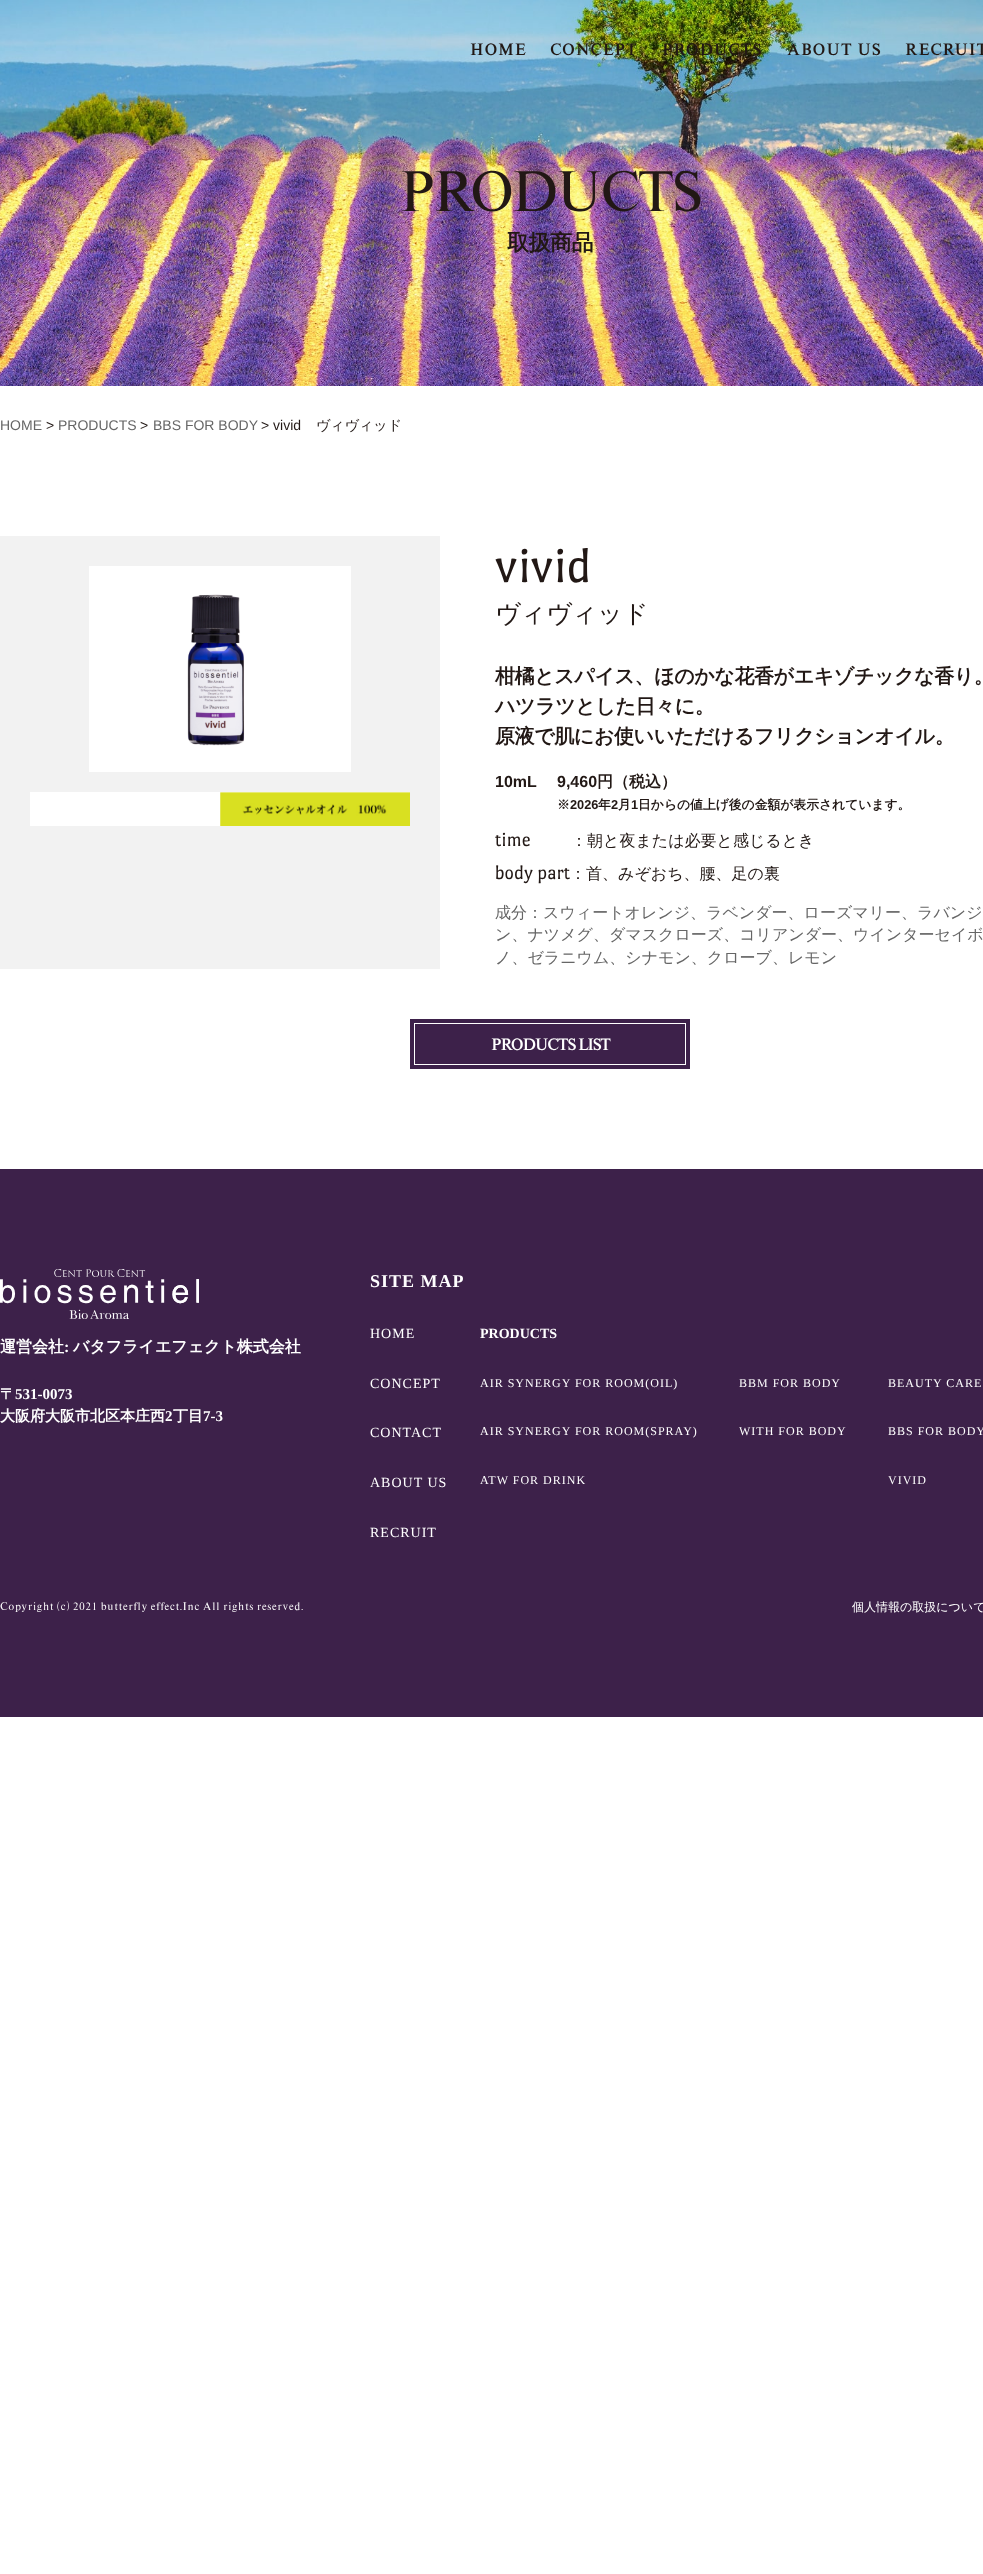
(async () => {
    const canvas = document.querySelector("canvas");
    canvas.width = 983;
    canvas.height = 2574;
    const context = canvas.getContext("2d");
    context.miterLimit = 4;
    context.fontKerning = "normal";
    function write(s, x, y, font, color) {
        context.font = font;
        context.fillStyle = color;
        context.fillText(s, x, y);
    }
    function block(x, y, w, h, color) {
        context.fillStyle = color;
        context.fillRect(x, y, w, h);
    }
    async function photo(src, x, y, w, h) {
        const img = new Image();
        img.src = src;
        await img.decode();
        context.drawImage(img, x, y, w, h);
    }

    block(0, 0, 983, 2574, "rgb(255, 255, 255)");
    await photo("media/1.png", 0, 0, 983, 386);
    context.letterSpacing = "2px";
    write("HOME", 470, 55, "bold 14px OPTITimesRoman", "rgb(34, 24, 21)");
    write("CONCEPT", 550, 55, "bold 14px OPTITimesRoman", "rgb(34, 24, 21)");
    write("PRODUCTS", 662, 55, "bold 14px OPTITimesRoman", "rgb(34, 24, 21)");
    write("ABOUT US", 787, 55, "bold 14px OPTITimesRoman", "rgb(34, 24, 21)");
    write("RECRUIT", 905, 55, "bold 14px OPTITimesRoman", "rgb(34, 24, 21)");
    context.letterSpacing = "0px";
    write("PRODUCTS", 399, 211, "50px OPTITimesRoman", "rgb(34, 24, 21)");
    context.letterSpacing = "-0.5px";
    write("取扱商品", 507, 250, "bold 22px WenQuanYi Zen Hei", "rgb(34, 24, 21)");
    context.letterSpacing = "0px";
    write("HOME", 0, 430, "14px Liberation Sans", "rgb(102, 102, 102)");
    write(">", 46, 430, "14px Liberation Sans", "rgb(34, 24, 21)");
    write("PRODUCTS", 58, 430, "14px Liberation Sans", "rgb(102, 102, 102)");
    write(">", 140, 430, "14px Liberation Sans", "rgb(34, 24, 21)");
    write("BBS FOR BODY", 153, 430, "14px Liberation Sans", "rgb(102, 102, 102)");
    write("> vivid", 261, 430, "14px Liberation Sans", "rgb(34, 24, 21)");
    write("ヴィヴィッド", 316, 430, "500 14px WenQuanYi Zen Hei", "rgb(34, 24, 21)");
    block(0, 536, 440, 433, "rgb(242, 242, 242)");
    await photo("media/2.png", 89, 566, 262, 206);
    await photo("media/3.png", 30, 792, 380, 34);
    write("vivid", 495, 582, "50px Port Lligat Sans", "rgb(34, 24, 21)");
    write("ヴィヴィッド", 495, 622, "500 25px WenQuanYi Zen Hei", "rgb(34, 24, 21)");
    context.letterSpacing = "-0.4px";
    write("柑橘とスパイス、ほのかな花香がエキゾチックな香り。", 495, 683, "bold 20px WenQuanYi Zen Hei", "rgb(34, 24, 21)");
    write("ハツラツとした日々に。", 495, 713, "bold 20px WenQuanYi Zen Hei", "rgb(34, 24, 21)");
    write("原液で肌にお使いいただけるフリクションオイル。", 495, 743, "bold 20px WenQuanYi Zen Hei", "rgb(34, 24, 21)");
    context.letterSpacing = "0px";
    write("10mL", 495, 787, "bold 16px Liberation Sans", "rgb(34, 24, 21)");
    write("9,460", 557, 787, "bold 16px Liberation Sans", "rgb(34, 24, 21)");
    write("円（税込）", 597, 787, "bold 16px WenQuanYi Zen Hei", "rgb(34, 24, 21)");
    write("※", 557, 809, "bold 12.8px WenQuanYi Zen Hei", "rgb(34, 24, 21)");
    write("2026", 570, 809, "bold 12.8px Liberation Sans", "rgb(34, 24, 21)");
    write("年", 598, 809, "bold 12.8px WenQuanYi Zen Hei", "rgb(34, 24, 21)");
    write("2", 611, 809, "bold 12.8px Liberation Sans", "rgb(34, 24, 21)");
    write("月", 618, 809, "bold 12.8px WenQuanYi Zen Hei", "rgb(34, 24, 21)");
    write("1", 631, 809, "bold 12.8px Liberation Sans", "rgb(34, 24, 21)");
    write("日からの値上げ後の金額が表示されています。", 638, 809, "bold 12.8px WenQuanYi Zen Hei", "rgb(34, 24, 21)");
    write("time", 495, 846, "20px Port Lligat Sans", "rgb(34, 24, 21)");
    write("：朝と夜または必要と感じるとき", 571, 846, "500 16px WenQuanYi Zen Hei", "rgb(34, 24, 21)");
    write("body part", 495, 879, "20px Port Lligat Sans", "rgb(34, 24, 21)");
    write("：首、みぞおち、腰、足の裏", 570, 879, "500 16px WenQuanYi Zen Hei", "rgb(34, 24, 21)");
    write("成分：スウィートオレンジ、ラベンダー、ローズマリー、ラバンジ", 495, 918, "500 16px WenQuanYi Zen Hei", "rgb(102, 102, 102)");
    write("ン、ナツメグ、ダマスクローズ、コリアンダー、ウインターセイボ", 495, 940, "500 16px WenQuanYi Zen Hei", "rgb(102, 102, 102)");
    write("ノ、ゼラニウム、シナモン、クローブ、レモン", 495, 963, "500 16px WenQuanYi Zen Hei", "rgb(102, 102, 102)");
    block(410, 1019, 280, 50, "rgb(61, 33, 74)");
    context.strokeStyle = "rgb(255, 255, 255)";
    context.strokeRect(414.5, 1023.5, 271, 41);
    write("PRODUCTS LIST", 491, 1050, "bold 14px OPTITimesRoman", "rgb(255, 255, 255)");
    block(0, 1169, 983, 548, "rgb(61, 33, 74)");
    await photo("media/4.png", 0, 1269, 199, 50);
    write("運営会社", 0, 1352, "bold 16px WenQuanYi Zen Hei", "rgb(255, 255, 255)");
    write(":", 64, 1352, "bold 16px Liberation Serif", "rgb(255, 255, 255)");
    write("バタフライエフェクト株式会社", 73, 1352, "bold 16px WenQuanYi Zen Hei", "rgb(255, 255, 255)");
    write("〒", 0, 1399, "bold 15px WenQuanYi Zen Hei", "rgb(255, 255, 255)");
    write("531-0073", 15, 1399, "bold 15px Liberation Serif", "rgb(255, 255, 255)");
    write("大阪府大阪市北区本庄西", 0, 1421, "bold 15px WenQuanYi Zen Hei", "rgb(255, 255, 255)");
    write("2", 165, 1421, "bold 15px Liberation Serif", "rgb(255, 255, 255)");
    write("丁目", 173, 1421, "bold 15px WenQuanYi Zen Hei", "rgb(255, 255, 255)");
    write("7-3", 203, 1421, "bold 15px Liberation Serif", "rgb(255, 255, 255)");
    context.letterSpacing = "1px";
    write("SITE MAP", 370, 1287, "bold 18px Liberation Serif", "rgb(255, 255, 255)");
    write("HOME", 370, 1338, "14px Liberation Serif", "rgb(255, 255, 255)");
    write("CONCEPT", 370, 1388, "14px Liberation Serif", "rgb(255, 255, 255)");
    write("CONTACT", 370, 1437, "14px Liberation Serif", "rgb(255, 255, 255)");
    write("ABOUT US", 370, 1487, "14px Liberation Serif", "rgb(255, 255, 255)");
    write("RECRUIT", 370, 1537, "14px Liberation Serif", "rgb(255, 255, 255)");
    context.letterSpacing = "0px";
    write("PRODUCTS", 480, 1338, "bold 14px Liberation Serif", "rgb(255, 255, 255)");
    context.letterSpacing = "1px";
    write("AIR SYNERGY FOR ROOM(OIL)", 480, 1387, "12px Liberation Serif", "rgb(255, 255, 255)");
    write("AIR SYNERGY FOR ROOM(SPRAY)", 480, 1435, "12px Liberation Serif", "rgb(255, 255, 255)");
    write("ATW FOR DRINK", 480, 1484, "12px Liberation Serif", "rgb(255, 255, 255)");
    write("BBM FOR BODY", 739, 1387, "12px Liberation Serif", "rgb(255, 255, 255)");
    write("WITH FOR BODY", 739, 1435, "12px Liberation Serif", "rgb(255, 255, 255)");
    write("BEAUTY CARE", 888, 1387, "12px Liberation Serif", "rgb(255, 255, 255)");
    write("BBS FOR BODY", 888, 1435, "12px Liberation Serif", "rgb(255, 255, 255)");
    write("VIVID", 888, 1484, "12px Liberation Serif", "rgb(255, 255, 255)");
    write("Copyright (c) 2021 butterfly effect.Inc All rights reserved.", 0, 1610, "9.6px OPTITimesRoman", "rgb(255, 255, 255)");
    context.letterSpacing = "0px";
    write("個人情報の取扱について", 852, 1611, "500 12px WenQuanYi Zen Hei", "rgb(255, 255, 255)");
})();
